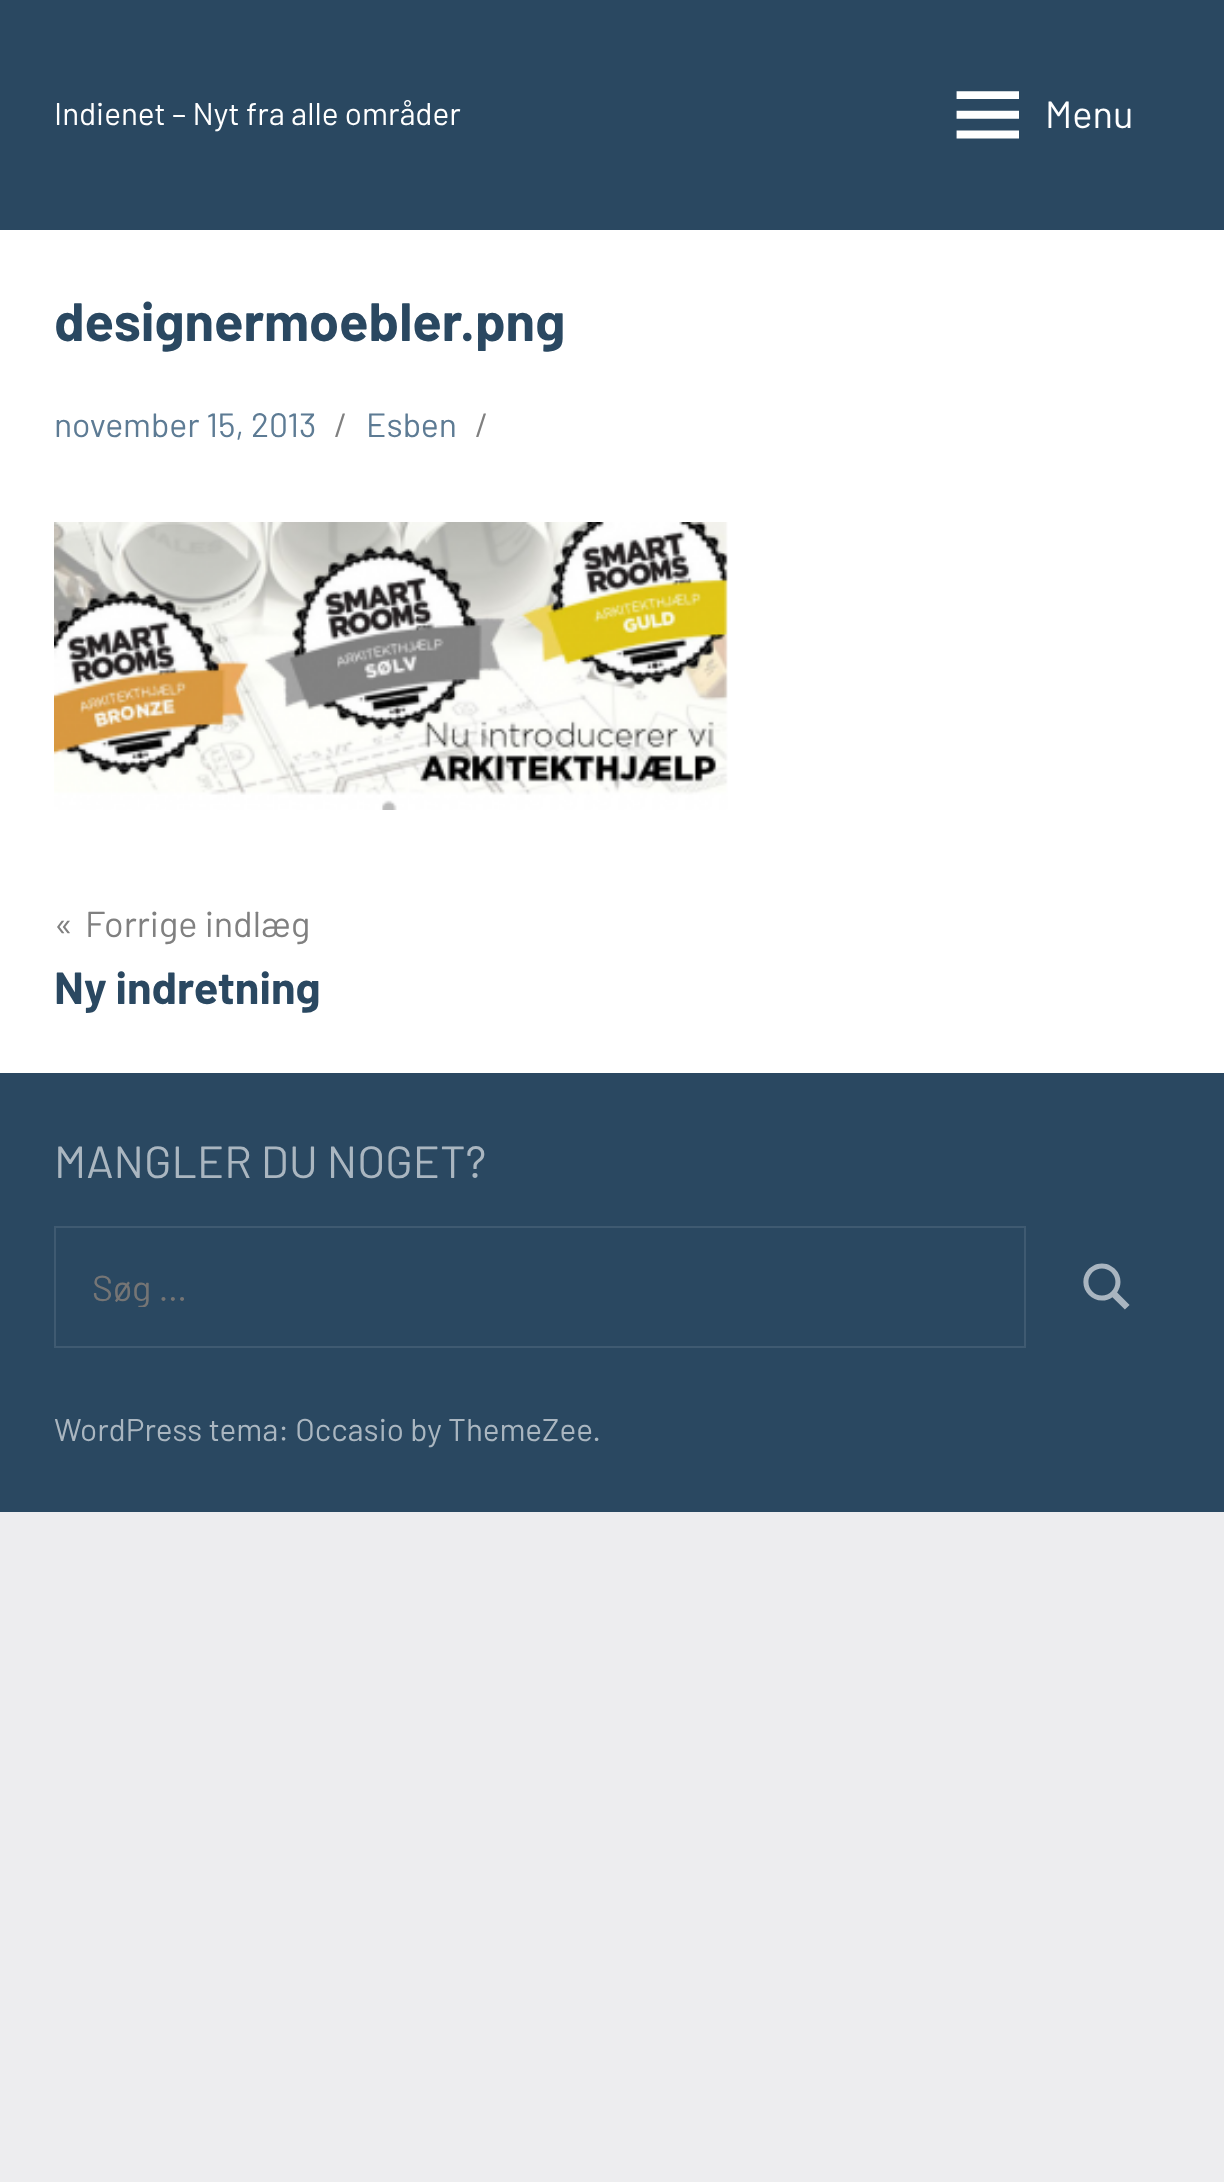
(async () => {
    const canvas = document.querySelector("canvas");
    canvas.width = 1224;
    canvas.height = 2182;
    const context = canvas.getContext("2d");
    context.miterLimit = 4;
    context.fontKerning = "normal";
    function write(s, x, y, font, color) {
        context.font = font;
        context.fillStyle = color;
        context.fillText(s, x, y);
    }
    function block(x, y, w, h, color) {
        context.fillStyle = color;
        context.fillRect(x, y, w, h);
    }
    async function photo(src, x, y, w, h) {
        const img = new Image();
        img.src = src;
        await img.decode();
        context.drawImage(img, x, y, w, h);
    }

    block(0, 0, 1224, 2182, "rgb(237, 237, 239)");
    block(0, 0, 1224, 230, "rgb(42, 72, 97)");
    write("Indienet – Nyt fra alle områder", 54, 125, "31.5px Barlow", "rgb(255, 255, 255)");
    await photo("media/1.png", 956, 91, 63, 48);
    write("Menu", 1045, 128, "38px Barlow", "rgb(255, 255, 255)");
    block(0, 230, 1224, 843, "rgb(255, 255, 255)");
    write("designermoebler.png", 54, 341, "bold 54px Barlow", "rgb(42, 72, 97)");
    write("november 15, 2013", 54, 437, "33.75px Barlow", "rgb(93, 123, 148)");
    write("/", 334, 437, "33.75px Barlow", "rgb(128, 128, 128)");
    write("Esben", 366, 437, "33.75px Barlow", "rgb(93, 123, 148)");
    write("/", 475, 437, "33.75px Barlow", "rgb(128, 128, 128)");
    await photo("media/2.png", 54, 522, 674, 288);
    write("«", 54, 937, "36px Barlow", "rgb(128, 128, 128)");
    write("Forrige indlæg", 85, 937, "36px Barlow", "rgb(128, 128, 128)");
    write("Ny indretning", 54, 1004, "bold 45px Barlow", "rgb(42, 72, 97)");
    block(0, 1073, 1224, 439, "rgb(42, 72, 97)");
    write("MANGLER DU NOGET?", 54, 1178, "45px Barlow", "rgb(170, 182, 192)");
    context.strokeStyle = "rgb(63, 90, 113)";
    context.lineWidth = 2;
    context.strokeRect(55, 1227, 970, 120);
    context.save();
    context.beginPath();
    context.rect(92, 1265, 887, 42);
    context.clip();
    write("Søg …", 92, 1301, "36px Barlow", "rgb(117, 117, 117)");
    context.restore();
    await photo("media/3.png", 1083, 1263, 47, 47);
    write("WordPress tema: Occasio by ThemeZee.", 54, 1441, "31.5px Barlow", "rgb(170, 182, 192)");
})();
